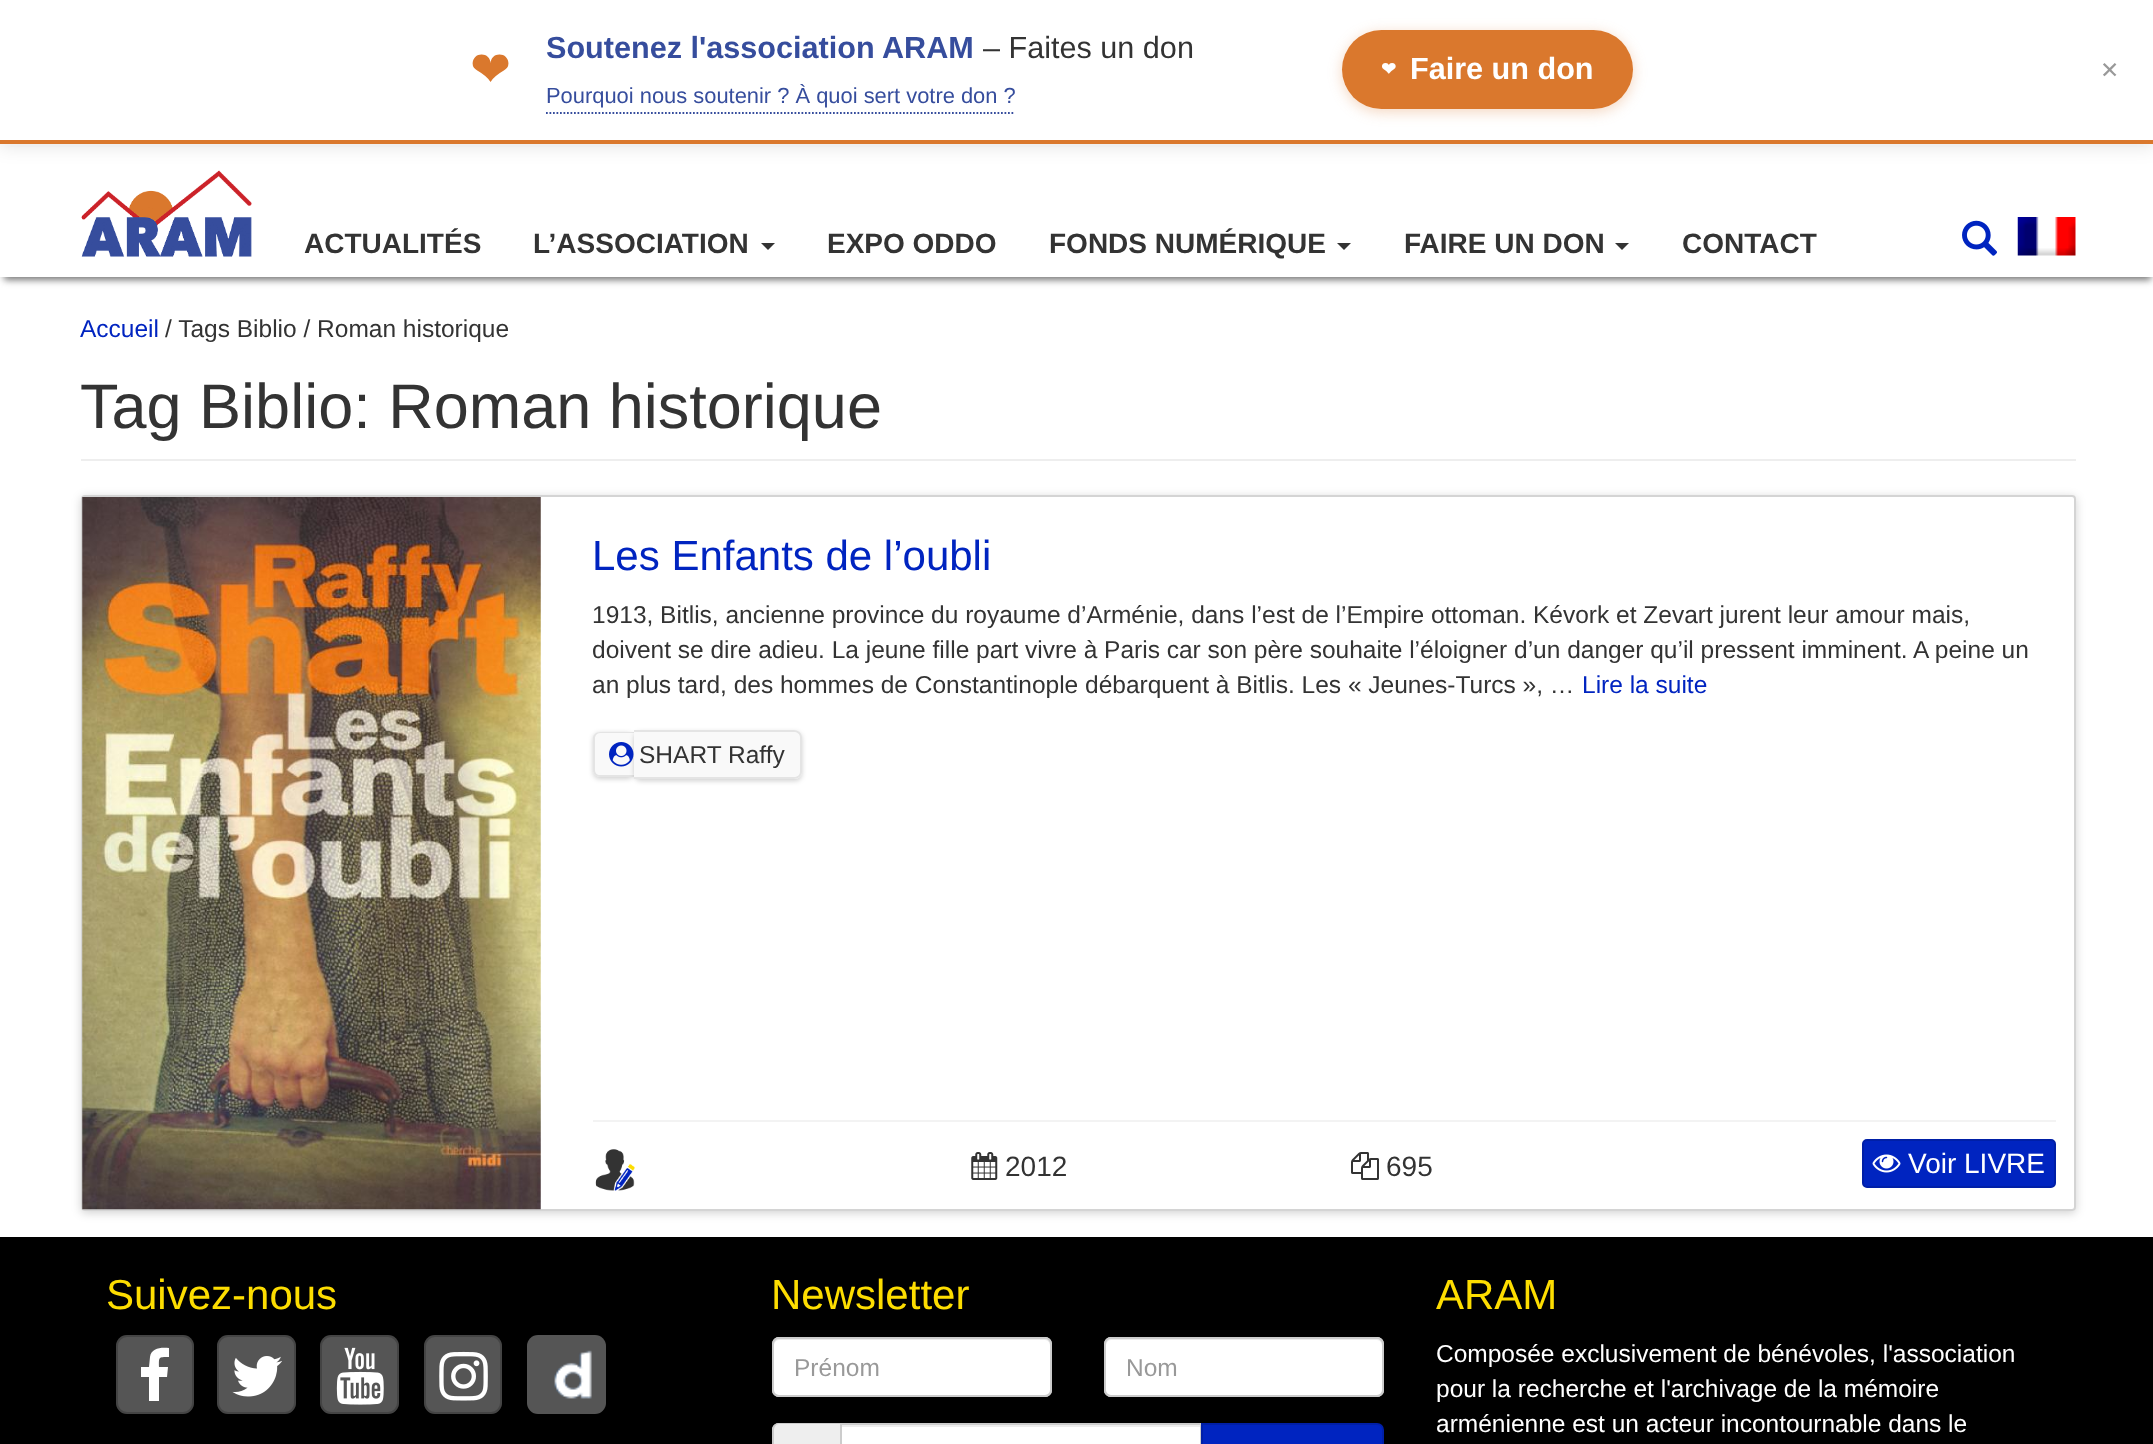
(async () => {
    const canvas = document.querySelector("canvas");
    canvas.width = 2153;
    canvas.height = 1444;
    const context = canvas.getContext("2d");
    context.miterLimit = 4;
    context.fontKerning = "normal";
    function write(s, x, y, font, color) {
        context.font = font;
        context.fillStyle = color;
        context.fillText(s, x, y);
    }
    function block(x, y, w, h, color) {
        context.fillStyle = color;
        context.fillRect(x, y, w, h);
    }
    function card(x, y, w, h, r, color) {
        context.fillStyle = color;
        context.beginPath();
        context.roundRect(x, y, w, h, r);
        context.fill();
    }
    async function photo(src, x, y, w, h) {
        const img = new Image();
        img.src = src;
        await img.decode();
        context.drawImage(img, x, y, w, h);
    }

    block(0, 0, 2153, 1444, "rgb(255, 255, 255)");
    context.fillStyle = "rgb(119, 119, 119)";
    context.filter = "blur(3.5px)";
    context.beginPath();
    context.rect(4, 154, 2147, 126);
    context.fill();
    context.filter = "none";
    block(0, 147, 2153, 130, "rgb(255, 255, 255)");
    await photo("media/1.png", 81, 170, 171, 87);
    context.fillStyle = "rgba(0, 0, 0, 0.1)";
    context.filter = "blur(9px)";
    context.beginPath();
    context.rect(0, 4, 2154, 143);
    context.fill();
    context.filter = "none";
    block(0, 0, 2153, 140, "rgb(255, 255, 255)");
    block(0, 140, 2153, 4, "rgb(218, 120, 45)");
    write("❤", 470, 86, "49px DejaVu Sans", "rgb(218, 120, 45)");
    write("Soutenez l'association ARAM", 546, 58, "bold 30.6px Liberation Sans", "rgb(54, 77, 157)");
    write("– Faites un don", 983, 58, "30.6px Liberation Sans", "rgb(51, 51, 51)");
    write("Pourquoi nous soutenir ? À quoi sert votre don ?", 546, 103, "21.9px Liberation Sans", "rgb(54, 77, 157)");
    context.beginPath();
    context.moveTo(546, 113);
    context.lineTo(1015, 113);
    context.strokeStyle = "rgb(54, 77, 157)";
    context.lineWidth = 1.8;
    context.setLineDash([1.75, 1.75]);
    context.stroke();
    context.fillStyle = "rgba(218, 120, 45, 0.3)";
    context.filter = "blur(7px)";
    context.beginPath();
    context.roundRect(1342, 33, 291, 79, 39.5);
    context.fill();
    context.filter = "none";
    card(1342, 30, 291, 79, 39.5, "rgb(218, 120, 45)");
    write("❤", 1381, 75, "bold 18px DejaVu Sans", "rgb(255, 255, 255)");
    write("Faire un don", 1410, 79, "bold 30.6px Liberation Sans", "rgb(255, 255, 255)");
    write("✕", 2100, 78, "23px DejaVu Sans", "rgb(153, 153, 153)");
    write("ACTUALITÉS", 304, 253, "bold 28px Liberation Sans", "rgb(51, 51, 51)");
    write("L’ASSOCIATION", 533, 253, "bold 28px Liberation Sans", "rgb(51, 51, 51)");
    context.beginPath();
    context.moveTo(761, 243);
    context.lineTo(775, 243);
    context.lineTo(768, 250);
    context.closePath();
    context.fill();
    write("EXPO ODDO", 827, 253, "bold 28px Liberation Sans", "rgb(51, 51, 51)");
    write("FONDS NUMÉRIQUE", 1049, 253, "bold 28px Liberation Sans", "rgb(51, 51, 51)");
    context.beginPath();
    context.moveTo(1337, 243);
    context.lineTo(1351, 243);
    context.lineTo(1344, 250);
    context.closePath();
    context.fill();
    write("FAIRE UN DON", 1404, 253, "bold 28px Liberation Sans", "rgb(51, 51, 51)");
    context.beginPath();
    context.moveTo(1615, 243);
    context.lineTo(1629, 243);
    context.lineTo(1622, 250);
    context.closePath();
    context.fill();
    write("CONTACT", 1682, 253, "bold 28px Liberation Sans", "rgb(51, 51, 51)");
    await photo("media/2.png", 1962, 220, 35, 36);
    await photo("media/3.png", 2017, 217, 59, 39);
    write("Accueil", 80, 337, "24.5px Liberation Sans", "rgb(0, 36, 192)");
    write("/ Tags Biblio / Roman historique", 165, 337, "24.5px Liberation Sans", "rgb(51, 51, 51)");
    block(81, 459, 1995, 2, "rgb(238, 238, 238)");
    write("Tag Biblio: Roman historique", 80, 428, "63px Liberation Sans", "rgb(51, 51, 51)");
    context.save();
    context.beginPath();
    context.moveTo(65, 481);
    context.lineTo(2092, 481);
    context.lineTo(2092, 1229);
    context.lineTo(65, 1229);
    context.closePath();
    context.moveTo(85, 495);
    context.lineTo(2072, 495);
    context.bezierCurveTo(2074, 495, 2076, 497, 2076, 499);
    context.lineTo(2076, 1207);
    context.bezierCurveTo(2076, 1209, 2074, 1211, 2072, 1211);
    context.lineTo(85, 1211);
    context.bezierCurveTo(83, 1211, 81, 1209, 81, 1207);
    context.lineTo(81, 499);
    context.bezierCurveTo(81, 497, 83, 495, 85, 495);
    context.closePath();
    context.clip("evenodd");
    context.fillStyle = "rgba(0, 0, 0, 0.18)";
    context.filter = "blur(5px)";
    context.beginPath();
    context.roundRect(81, 497, 1995, 716, 4);
    context.fill();
    context.filter = "none";
    context.restore();
    context.beginPath();
    context.roundRect(82, 496, 1993, 714, 3);
    context.strokeStyle = "rgb(212, 212, 212)";
    context.lineWidth = 2;
    context.setLineDash([]);
    context.stroke();
    await photo("media/4.png", 82, 497, 459, 713);
    write("Les Enfants de l’oubli", 592, 570, "42px Liberation Sans", "rgb(0, 36, 192)");
    write("1913, Bitlis, ancienne province du royaume d’Arménie, dans l’est de l’Empire ottoman. Kévork et Zevart jurent leur amour mais,", 592, 623, "24.5px Liberation Sans", "rgb(51, 51, 51)");
    write("doivent se dire adieu. La jeune fille part vivre à Paris car son père souhaite l’éloigner d’un danger qu’il pressent imminent. A peine un", 592, 658, "24.5px Liberation Sans", "rgb(51, 51, 51)");
    write("an plus tard, des hommes de Constantinople débarquent à Bitlis. Les « Jeunes-Turcs », …", 592, 693, "24.5px Liberation Sans", "rgb(51, 51, 51)");
    write("Lire la suite", 1582, 693, "24.5px Liberation Sans", "rgb(0, 36, 192)");
    context.fillStyle = "rgba(0, 0, 0, 0.18)";
    context.filter = "blur(2.5px)";
    context.beginPath();
    context.roundRect(593, 733, 41, 46, 7);
    context.fill();
    context.filter = "none";
    context.fillStyle = "rgb(249, 249, 249)";
    context.beginPath();
    context.roundRect(593, 732, 41, 45, [7, 0, 0, 7]);
    context.fill();
    context.fillStyle = "rgb(228, 228, 228)";
    context.beginPath();
    context.moveTo(600, 732);
    context.lineTo(634, 732);
    context.lineTo(634, 777);
    context.lineTo(600, 777);
    context.bezierCurveTo(596, 777, 593, 774, 593, 770);
    context.lineTo(593, 738);
    context.bezierCurveTo(593, 735, 596, 732, 600, 732);
    context.closePath();
    context.moveTo(600, 733);
    context.lineTo(634, 733);
    context.lineTo(634, 775);
    context.lineTo(600, 775);
    context.bezierCurveTo(597, 775, 595, 773, 595, 770);
    context.lineTo(595, 738);
    context.bezierCurveTo(595, 736, 597, 733, 600, 733);
    context.closePath();
    context.fill("evenodd");
    context.fillStyle = "rgba(0, 0, 0, 0.18)";
    context.filter = "blur(2.5px)";
    context.beginPath();
    context.roundRect(634, 732, 168, 49, 7);
    context.fill();
    context.filter = "none";
    context.fillStyle = "rgb(249, 249, 249)";
    context.beginPath();
    context.roundRect(634, 730, 168, 49, [0, 7, 7, 0]);
    context.fill();
    context.fillStyle = "rgb(228, 228, 228)";
    context.beginPath();
    context.moveTo(634, 730);
    context.lineTo(794, 730);
    context.bezierCurveTo(798, 730, 802, 733, 802, 737);
    context.lineTo(802, 772);
    context.bezierCurveTo(802, 776, 798, 779, 794, 779);
    context.lineTo(634, 779);
    context.closePath();
    context.moveTo(634, 732);
    context.lineTo(794, 732);
    context.bezierCurveTo(797, 732, 800, 734, 800, 737);
    context.lineTo(800, 772);
    context.bezierCurveTo(800, 775, 797, 777, 794, 777);
    context.lineTo(634, 777);
    context.closePath();
    context.fill("evenodd");
    await photo("media/5.png", 609, 742, 25, 25);
    write("SHART Raffy", 639, 763, "24.5px Liberation Sans", "rgb(51, 51, 51)");
    block(593, 1120, 1463, 2, "rgb(243, 243, 243)");
    await photo("media/6.png", 595, 1149, 40, 42);
    await photo("media/7.png", 971, 1152, 27, 28);
    write("2012", 1005, 1176, "28px Liberation Sans", "rgb(51, 51, 51)");
    await photo("media/8.png", 1351, 1152, 28, 28);
    write("695", 1386, 1176, "28px Liberation Sans", "rgb(51, 51, 51)");
    context.fillStyle = "rgb(0, 36, 192)";
    context.beginPath();
    context.roundRect(1863, 1140, 192, 47, 4);
    context.fill();
    context.strokeStyle = "rgb(0, 31, 167)";
    context.stroke();
    await photo("media/9.png", 1872, 1154, 29, 19);
    write("Voir LIVRE", 1908, 1173, "28px Liberation Sans", "rgb(255, 255, 255)");
    block(0, 1237, 2153, 207, "rgb(0, 0, 0)");
    write("Suivez-nous", 106, 1309, "42px Liberation Sans", "rgb(253, 221, 0)");
    card(116, 1335, 78, 79, 11, "rgb(85, 85, 85)");
    context.beginPath();
    context.roundRect(117, 1336, 76, 77, 10);
    context.strokeStyle = "rgba(0, 0, 0, 0.2)";
    context.stroke();
    context.fillStyle = "rgb(255, 255, 255)";
    context.beginPath();
    context.moveTo(169, 1348);
    context.lineTo(169, 1357);
    context.bezierCurveTo(158, 1357, 159, 1357, 159, 1367);
    context.lineTo(168, 1367);
    context.lineTo(167, 1377);
    context.lineTo(159, 1377);
    context.lineTo(159, 1401);
    context.lineTo(149, 1401);
    context.lineTo(149, 1377);
    context.lineTo(141, 1377);
    context.lineTo(141, 1367);
    context.lineTo(149, 1367);
    context.lineTo(150, 1357);
    context.bezierCurveTo(151, 1348, 161, 1347, 169, 1348);
    context.closePath();
    context.fill();
    card(217, 1335, 79, 79, 11, "rgb(85, 85, 85)");
    context.beginPath();
    context.roundRect(218, 1336, 77, 77, 10);
    context.stroke();
    await photo("media/10.png", 232, 1356, 50, 41);
    card(320, 1335, 79, 79, 11, "rgb(85, 85, 85)");
    context.beginPath();
    context.roundRect(321, 1336, 77, 77, 10);
    context.stroke();
    await photo("media/11.png", 336, 1347, 48, 58);
    card(424, 1335, 78, 79, 11, "rgb(85, 85, 85)");
    context.beginPath();
    context.roundRect(425, 1336, 76, 77, 10);
    context.stroke();
    await photo("media/12.png", 439, 1351, 49, 50);
    card(527, 1335, 79, 79, 11, "rgb(85, 85, 85)");
    await photo("media/13.png", 554, 1350, 38, 49);
    write("Newsletter", 771, 1309, "42px Liberation Sans", "rgb(253, 221, 0)");
    card(772, 1337, 280, 60, 7, "rgb(255, 255, 255)");
    context.fillStyle = "rgb(236, 236, 236)";
    context.beginPath();
    context.moveTo(779, 1340);
    context.lineTo(1045, 1340);
    context.bezierCurveTo(1048, 1340, 1050, 1343, 1050, 1346);
    context.lineTo(1050, 1344);
    context.bezierCurveTo(1050, 1341, 1048, 1339, 1045, 1339);
    context.lineTo(779, 1339);
    context.bezierCurveTo(776, 1339, 774, 1341, 774, 1344);
    context.lineTo(774, 1346);
    context.bezierCurveTo(774, 1343, 776, 1340, 779, 1340);
    context.closePath();
    context.fill();
    context.beginPath();
    context.roundRect(773, 1338, 278, 58, 6);
    context.strokeStyle = "rgb(204, 204, 204)";
    context.stroke();
    write("Prénom", 794, 1376, "24.5px Liberation Sans", "rgb(153, 153, 153)");
    card(1104, 1337, 280, 60, 7, "rgb(255, 255, 255)");
    context.fillStyle = "rgb(236, 236, 236)";
    context.beginPath();
    context.moveTo(1111, 1340);
    context.lineTo(1377, 1340);
    context.bezierCurveTo(1380, 1340, 1382, 1343, 1382, 1346);
    context.lineTo(1382, 1391);
    context.lineTo(1381, 1394);
    context.bezierCurveTo(1382, 1393, 1383, 1391, 1383, 1390);
    context.lineTo(1383, 1344);
    context.bezierCurveTo(1383, 1341, 1381, 1339, 1378, 1339);
    context.lineTo(1111, 1339);
    context.bezierCurveTo(1108, 1339, 1106, 1341, 1106, 1344);
    context.lineTo(1106, 1346);
    context.bezierCurveTo(1106, 1343, 1108, 1340, 1111, 1340);
    context.closePath();
    context.fill();
    context.beginPath();
    context.roundRect(1105, 1338, 278, 58, 6);
    context.stroke();
    write("Nom", 1126, 1376, "24.5px Liberation Sans", "rgb(153, 153, 153)");
    context.fillStyle = "rgb(238, 238, 238)";
    context.beginPath();
    context.moveTo(779, 1423);
    context.lineTo(840, 1423);
    context.lineTo(840, 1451);
    context.lineTo(779, 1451);
    context.bezierCurveTo(775, 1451, 772, 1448, 772, 1444);
    context.lineTo(772, 1430);
    context.bezierCurveTo(772, 1426, 775, 1423, 779, 1423);
    context.closePath();
    context.fill();
    context.fillStyle = "rgb(204, 204, 204)";
    context.beginPath();
    context.moveTo(779, 1423);
    context.lineTo(840, 1423);
    context.lineTo(840, 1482);
    context.lineTo(779, 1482);
    context.bezierCurveTo(775, 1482, 772, 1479, 772, 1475);
    context.lineTo(772, 1430);
    context.bezierCurveTo(772, 1426, 775, 1423, 779, 1423);
    context.closePath();
    context.moveTo(779, 1424);
    context.lineTo(840, 1424);
    context.lineTo(840, 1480);
    context.lineTo(779, 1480);
    context.bezierCurveTo(776, 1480, 774, 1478, 774, 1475);
    context.lineTo(774, 1430);
    context.bezierCurveTo(774, 1427, 776, 1424, 779, 1424);
    context.closePath();
    context.fill("evenodd");
    block(842, 1427, 358, 17, "rgb(255, 255, 255)");
    block(842, 1425, 359, 2, "rgb(236, 236, 236)");
    context.strokeRect(841, 1424, 360, 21);
    context.fillStyle = "rgb(0, 36, 192)";
    context.beginPath();
    context.moveTo(1202, 1424);
    context.lineTo(1377, 1424);
    context.bezierCurveTo(1380.5, 1424, 1383, 1426.5, 1383, 1430);
    context.lineTo(1383, 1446);
    context.bezierCurveTo(1383, 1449.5, 1380.5, 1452, 1377, 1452);
    context.lineTo(1202, 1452);
    context.closePath();
    context.fill();
    context.strokeStyle = "rgb(0, 31, 167)";
    context.stroke();
    write("ARAM", 1436, 1309, "42px Liberation Sans", "rgb(253, 221, 0)");
    write("Composée exclusivement de bénévoles, l'association", 1436, 1362, "24.5px Liberation Sans", "rgb(255, 255, 255)");
    write("pour la recherche et l'archivage de la mémoire", 1436, 1397, "24.5px Liberation Sans", "rgb(255, 255, 255)");
    write("arménienne est un acteur incontournable dans le", 1436, 1432, "24.5px Liberation Sans", "rgb(255, 255, 255)");
})();
